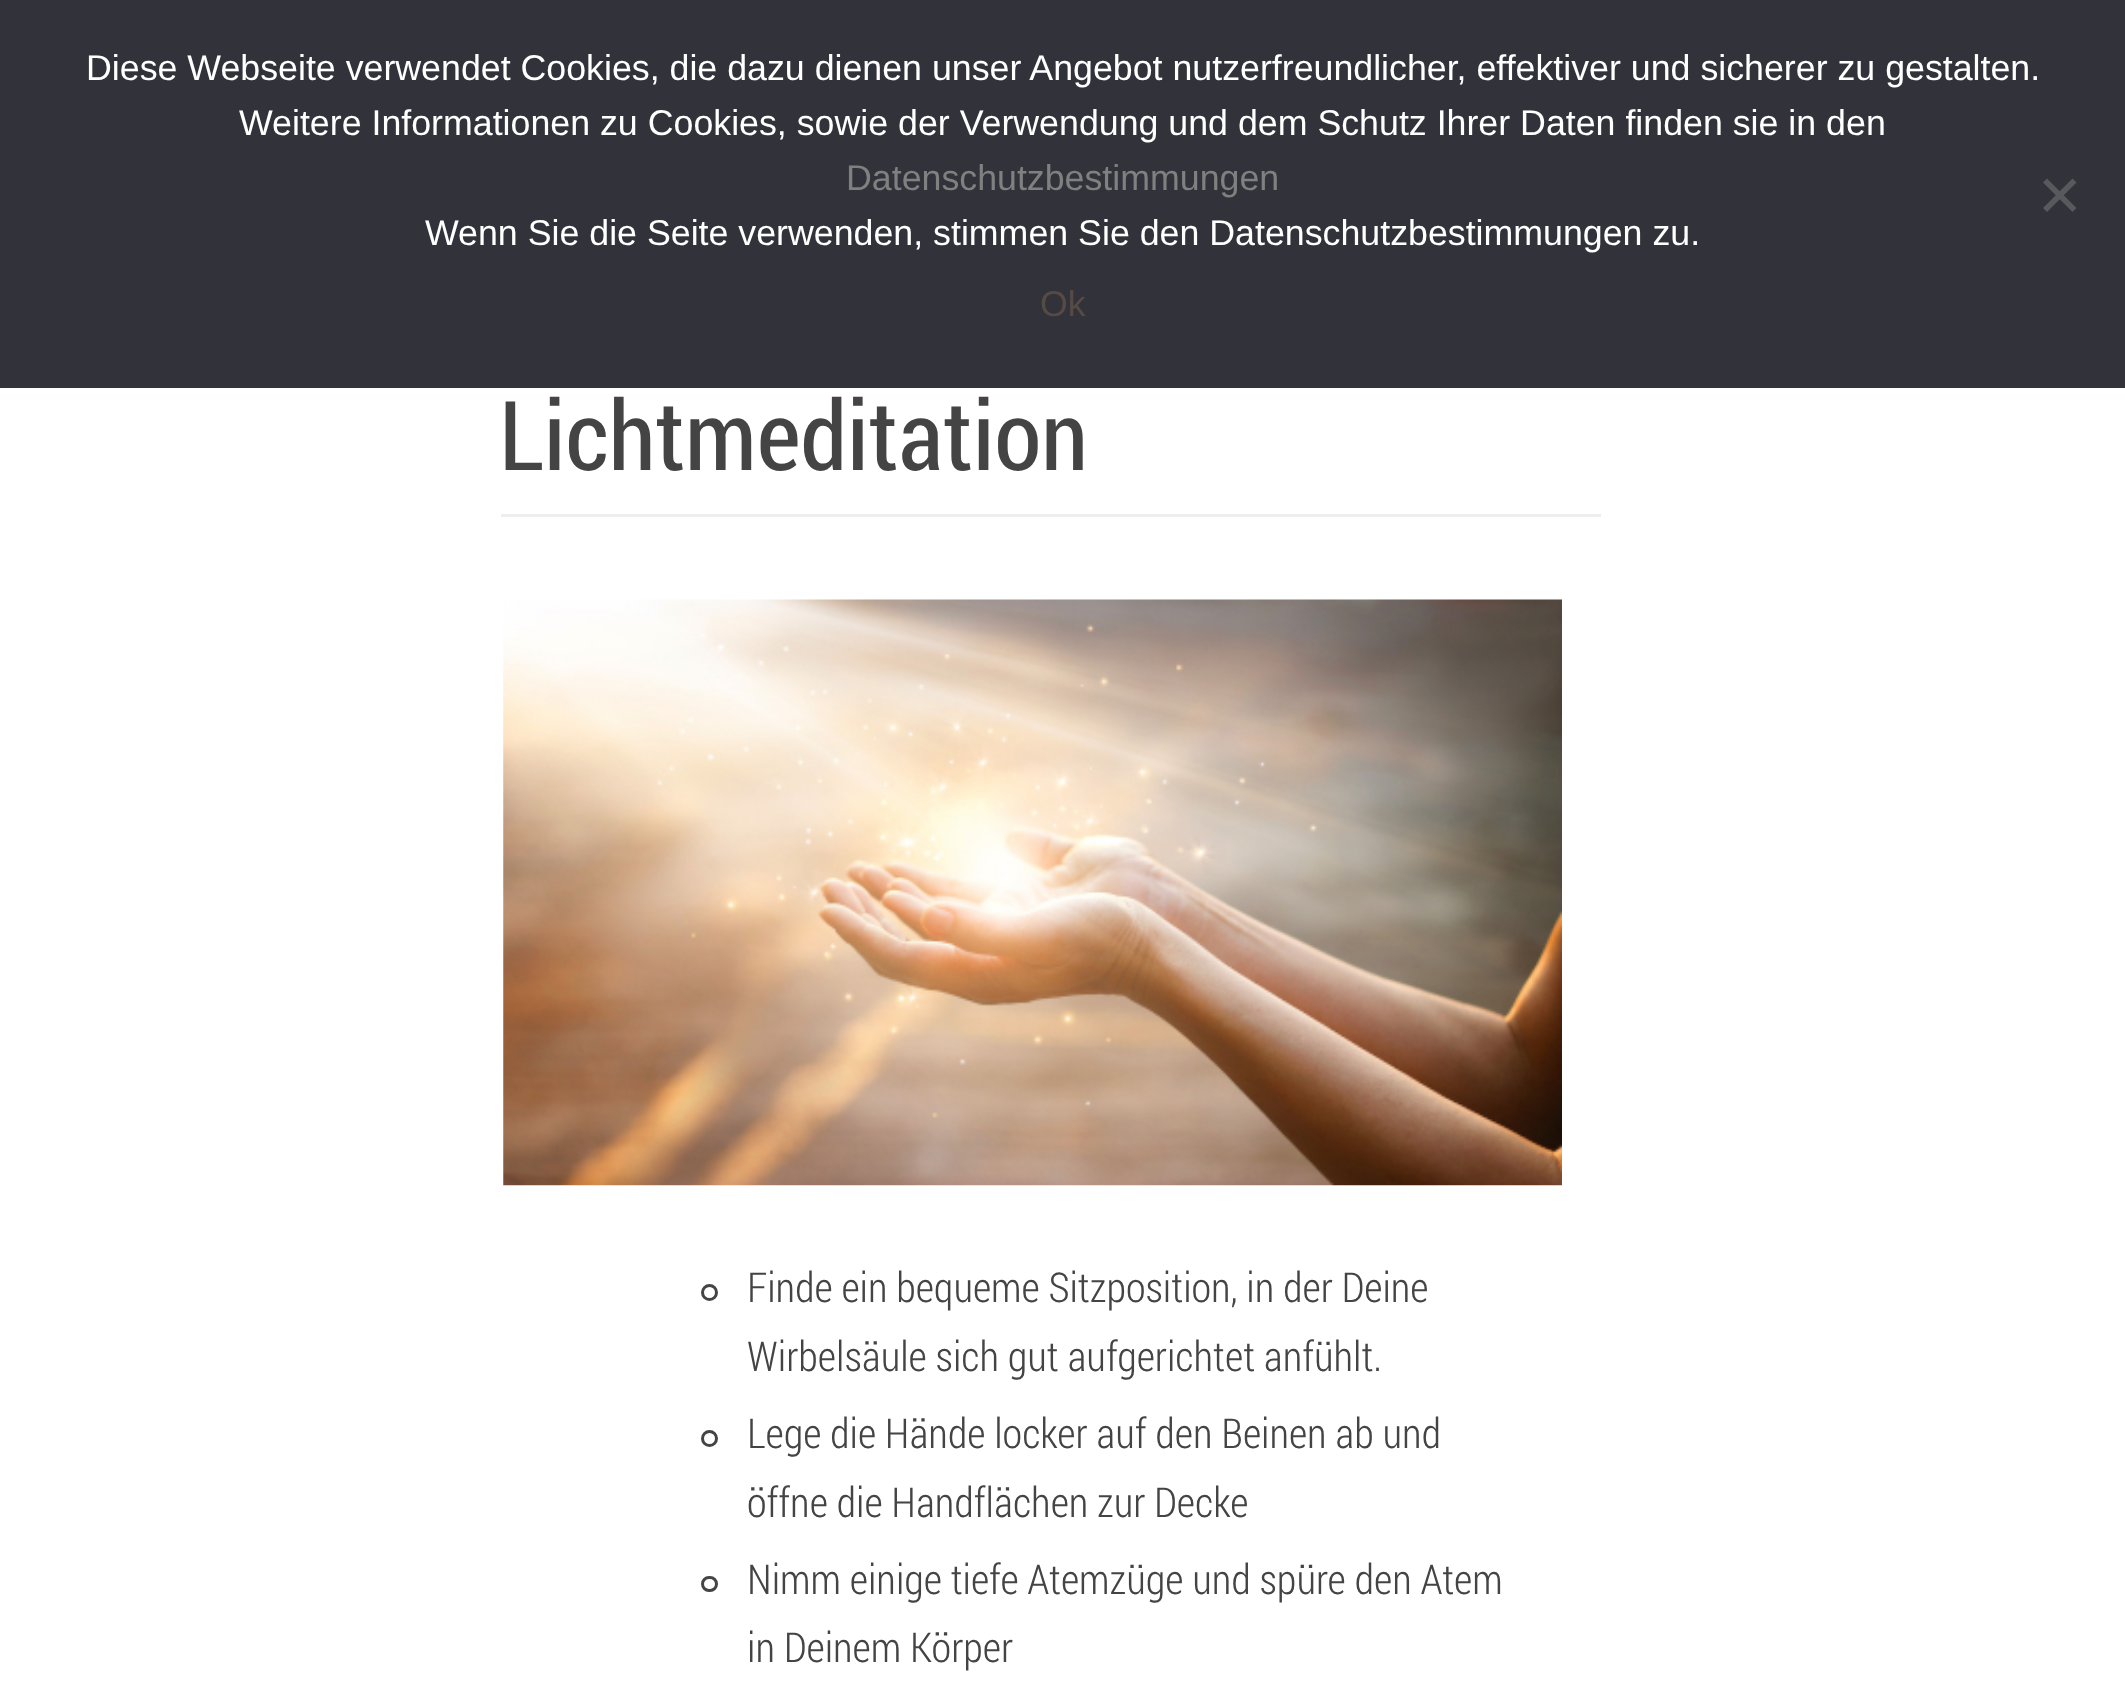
(async () => {
    const canvas = document.querySelector("canvas");
    canvas.width = 2125;
    canvas.height = 1683;
    const context = canvas.getContext("2d");
    context.miterLimit = 4;
    context.fontKerning = "normal";
    function write(s, x, y, font, color) {
        context.font = font;
        context.fillStyle = color;
        context.fillText(s, x, y);
    }
    function block(x, y, w, h, color) {
        context.fillStyle = color;
        context.fillRect(x, y, w, h);
    }
    async function photo(src, x, y, w, h) {
        const img = new Image();
        img.src = src;
        await img.decode();
        context.drawImage(img, x, y, w, h);
    }

    block(0, 0, 2125, 1683, "rgb(255, 255, 255)");
    block(0, 0, 2125, 388, "rgb(50, 50, 58)");
    write("Diese Webseite verwendet Cookies, die dazu dienen unser Angebot nutzerfreundlicher, effektiver und sicherer zu gestalten.", 86, 80, "35.75px Liberation Sans", "rgb(255, 255, 255)");
    write("Weitere Informationen zu Cookies, sowie der Verwendung und dem Schutz Ihrer Daten finden sie in den", 239, 135, "35.75px Liberation Sans", "rgb(255, 255, 255)");
    write("Datenschutzbestimmungen", 846, 190, "35.75px Liberation Sans", "rgb(128, 128, 128)");
    write("Wenn Sie die Seite verwenden, stimmen Sie den Datenschutzbestimmungen zu.", 425, 245, "35.75px Liberation Sans", "rgb(255, 255, 255)");
    context.fillStyle = "rgb(89, 89, 93)";
    context.beginPath();
    context.moveTo(2072.5, 178.5);
    context.lineTo(2076.5, 182.5);
    context.lineTo(2047, 212);
    context.lineTo(2043, 208);
    context.closePath();
    context.fill();
    context.beginPath();
    context.moveTo(2043, 182.5);
    context.lineTo(2047, 178.5);
    context.lineTo(2076.5, 208);
    context.lineTo(2072.5, 212);
    context.closePath();
    context.fill();
    write("Ok", 1040, 316, "35.75px Liberation Sans", "rgb(86, 74, 69)");
    write("Lichtmeditation", 499, 470, "96.25px Roboto Condensed", "rgb(68, 68, 68)");
    block(501, 514, 1100, 3, "rgb(238, 238, 238)");
    await photo("media/1.png", 503, 599, 1059, 587);
    context.beginPath();
    context.arc(709.5, 1292.5, 7, 0, Math.PI * 2);
    context.strokeStyle = "rgb(68, 68, 68)";
    context.lineWidth = 3;
    context.stroke();
    write("Finde ein bequeme Sitzposition, in der Deine", 747, 1302, "300 41.25px Roboto Condensed", "rgb(68, 68, 68)");
    write("Wirbelsäule sich gut aufgerichtet anfühlt.", 747, 1371, "300 41.25px Roboto Condensed", "rgb(68, 68, 68)");
    context.beginPath();
    context.arc(709.5, 1438.5, 7, 0, Math.PI * 2);
    context.stroke();
    write("Lege die Hände locker auf den Beinen ab und", 747, 1448, "300 41.25px Roboto Condensed", "rgb(68, 68, 68)");
    write("öffne die Handflächen zur Decke", 747, 1517, "300 41.25px Roboto Condensed", "rgb(68, 68, 68)");
    context.beginPath();
    context.roundRect(702.5, 1577.5, 14, 13, 6.5);
    context.stroke();
    write("Nimm einige tiefe Atemzüge und spüre den Atem", 747, 1594, "300 41.25px Roboto Condensed", "rgb(68, 68, 68)");
    write("in Deinem Körper", 747, 1662, "300 41.25px Roboto Condensed", "rgb(68, 68, 68)");
})();
